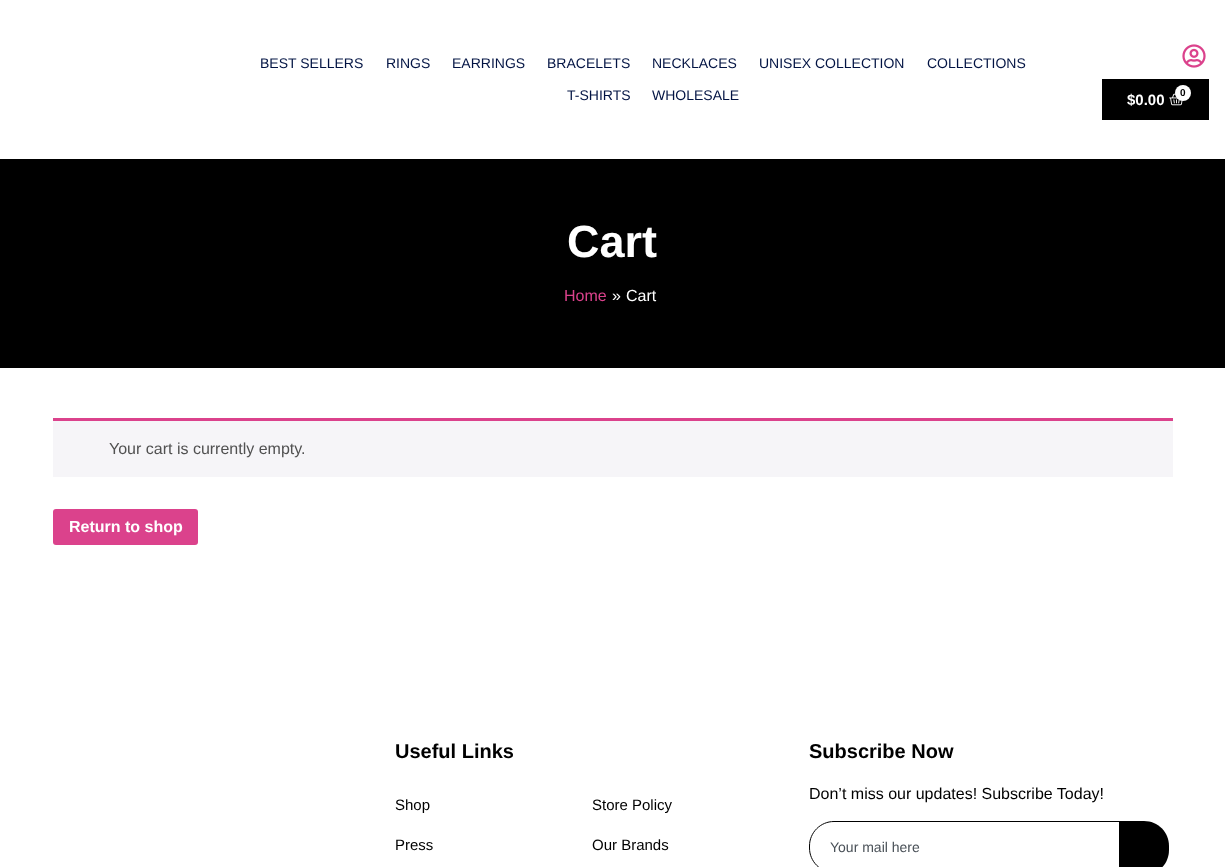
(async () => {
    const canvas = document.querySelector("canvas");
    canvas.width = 1225;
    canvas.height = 867;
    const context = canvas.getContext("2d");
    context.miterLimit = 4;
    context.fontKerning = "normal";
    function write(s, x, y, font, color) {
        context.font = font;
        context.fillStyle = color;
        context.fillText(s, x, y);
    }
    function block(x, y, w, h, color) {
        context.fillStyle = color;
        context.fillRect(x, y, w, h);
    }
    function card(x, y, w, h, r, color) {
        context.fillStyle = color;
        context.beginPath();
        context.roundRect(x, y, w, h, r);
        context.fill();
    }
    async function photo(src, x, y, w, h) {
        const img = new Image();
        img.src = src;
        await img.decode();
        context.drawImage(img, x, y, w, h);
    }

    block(0, 0, 1225, 867, "rgb(255, 255, 255)");
    write("BEST SELLERS", 260, 68, "14px Liberation Sans", "rgb(2, 19, 67)");
    write("RINGS", 386, 68, "14px Liberation Sans", "rgb(2, 19, 67)");
    write("EARRINGS", 452, 68, "14px Liberation Sans", "rgb(2, 19, 67)");
    write("BRACELETS", 547, 68, "14px Liberation Sans", "rgb(2, 19, 67)");
    write("NECKLACES", 652, 68, "14px Liberation Sans", "rgb(2, 19, 67)");
    write("UNISEX COLLECTION", 759, 68, "14px Liberation Sans", "rgb(2, 19, 67)");
    write("COLLECTIONS", 927, 68, "14px Liberation Sans", "rgb(2, 19, 67)");
    write("T-SHIRTS", 567, 100, "14px Liberation Sans", "rgb(2, 19, 67)");
    write("WHOLESALE", 652, 100, "14px Liberation Sans", "rgb(2, 19, 67)");
    await photo("media/1.png", 1182, 44, 24, 24);
    block(1102, 79, 107, 41, "rgb(0, 0, 0)");
    write("$0.00", 1127, 105, "bold 15px Liberation Sans", "rgb(255, 255, 255)");
    await photo("media/2.png", 1169, 93, 14, 13);
    context.beginPath();
    context.arc(1183, 93, 8, 0, Math.PI * 2);
    context.fill();
    write("0", 1180, 96, "bold 10px Liberation Sans", "rgb(0, 0, 0)");
    block(0, 159, 1225, 209, "rgb(0, 0, 0)");
    write("Cart", 567, 257, "bold 45px Liberation Sans", "rgb(255, 255, 255)");
    write("Home", 564, 301, "16px Liberation Sans", "rgb(219, 66, 140)");
    write("»", 612, 301, "16px Liberation Sans", "rgb(255, 255, 255)");
    write("Cart", 626, 301, "16px Liberation Sans", "rgb(255, 255, 255)");
    block(53, 421, 1120, 56, "rgb(246, 245, 248)");
    block(53, 418, 1120, 3, "rgb(219, 66, 140)");
    write("Your cart is currently empty.", 109, 454, "16px Liberation Sans", "rgb(81, 81, 81)");
    card(53, 509, 145, 36, 3, "rgb(219, 66, 140)");
    write("Return to shop", 69, 532, "bold 16px Liberation Sans", "rgb(255, 255, 255)");
    write("Useful Links", 395, 758, "bold 20px Liberation Sans", "rgb(0, 0, 0)");
    write("Shop", 395, 810, "15px Liberation Sans", "rgb(0, 0, 0)");
    write("Press", 395, 850, "15px Liberation Sans", "rgb(0, 0, 0)");
    write("Store Policy", 592, 810, "15px Liberation Sans", "rgb(0, 0, 0)");
    write("Our Brands", 592, 850, "15px Liberation Sans", "rgb(0, 0, 0)");
    write("Subscribe Now", 809, 758, "bold 20px Liberation Sans", "rgb(0, 0, 0)");
    write("Don’t miss our updates! Subscribe Today!", 809, 799, "16px Liberation Sans", "rgb(0, 0, 0)");
    context.beginPath();
    context.moveTo(834, 821.5);
    context.lineTo(1120.5, 821.5);
    context.lineTo(1120.5, 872.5);
    context.lineTo(834, 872.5);
    context.bezierCurveTo(820.5, 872.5, 809.5, 861.5, 809.5, 848);
    context.lineTo(809.5, 846);
    context.bezierCurveTo(809.5, 832.5, 820.5, 821.5, 834, 821.5);
    context.closePath();
    context.strokeStyle = "rgb(0, 0, 0)";
    context.stroke();
    write("Your mail here", 830, 852, "14px Liberation Sans", "rgb(73, 80, 87)");
    context.fillStyle = "rgb(0, 0, 0)";
    context.beginPath();
    context.moveTo(1119, 821);
    context.lineTo(1144, 821);
    context.bezierCurveTo(1158, 821, 1169, 832, 1169, 846);
    context.lineTo(1169, 850);
    context.bezierCurveTo(1169, 864, 1158, 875, 1144, 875);
    context.lineTo(1119, 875);
    context.closePath();
    context.fill();
})();
